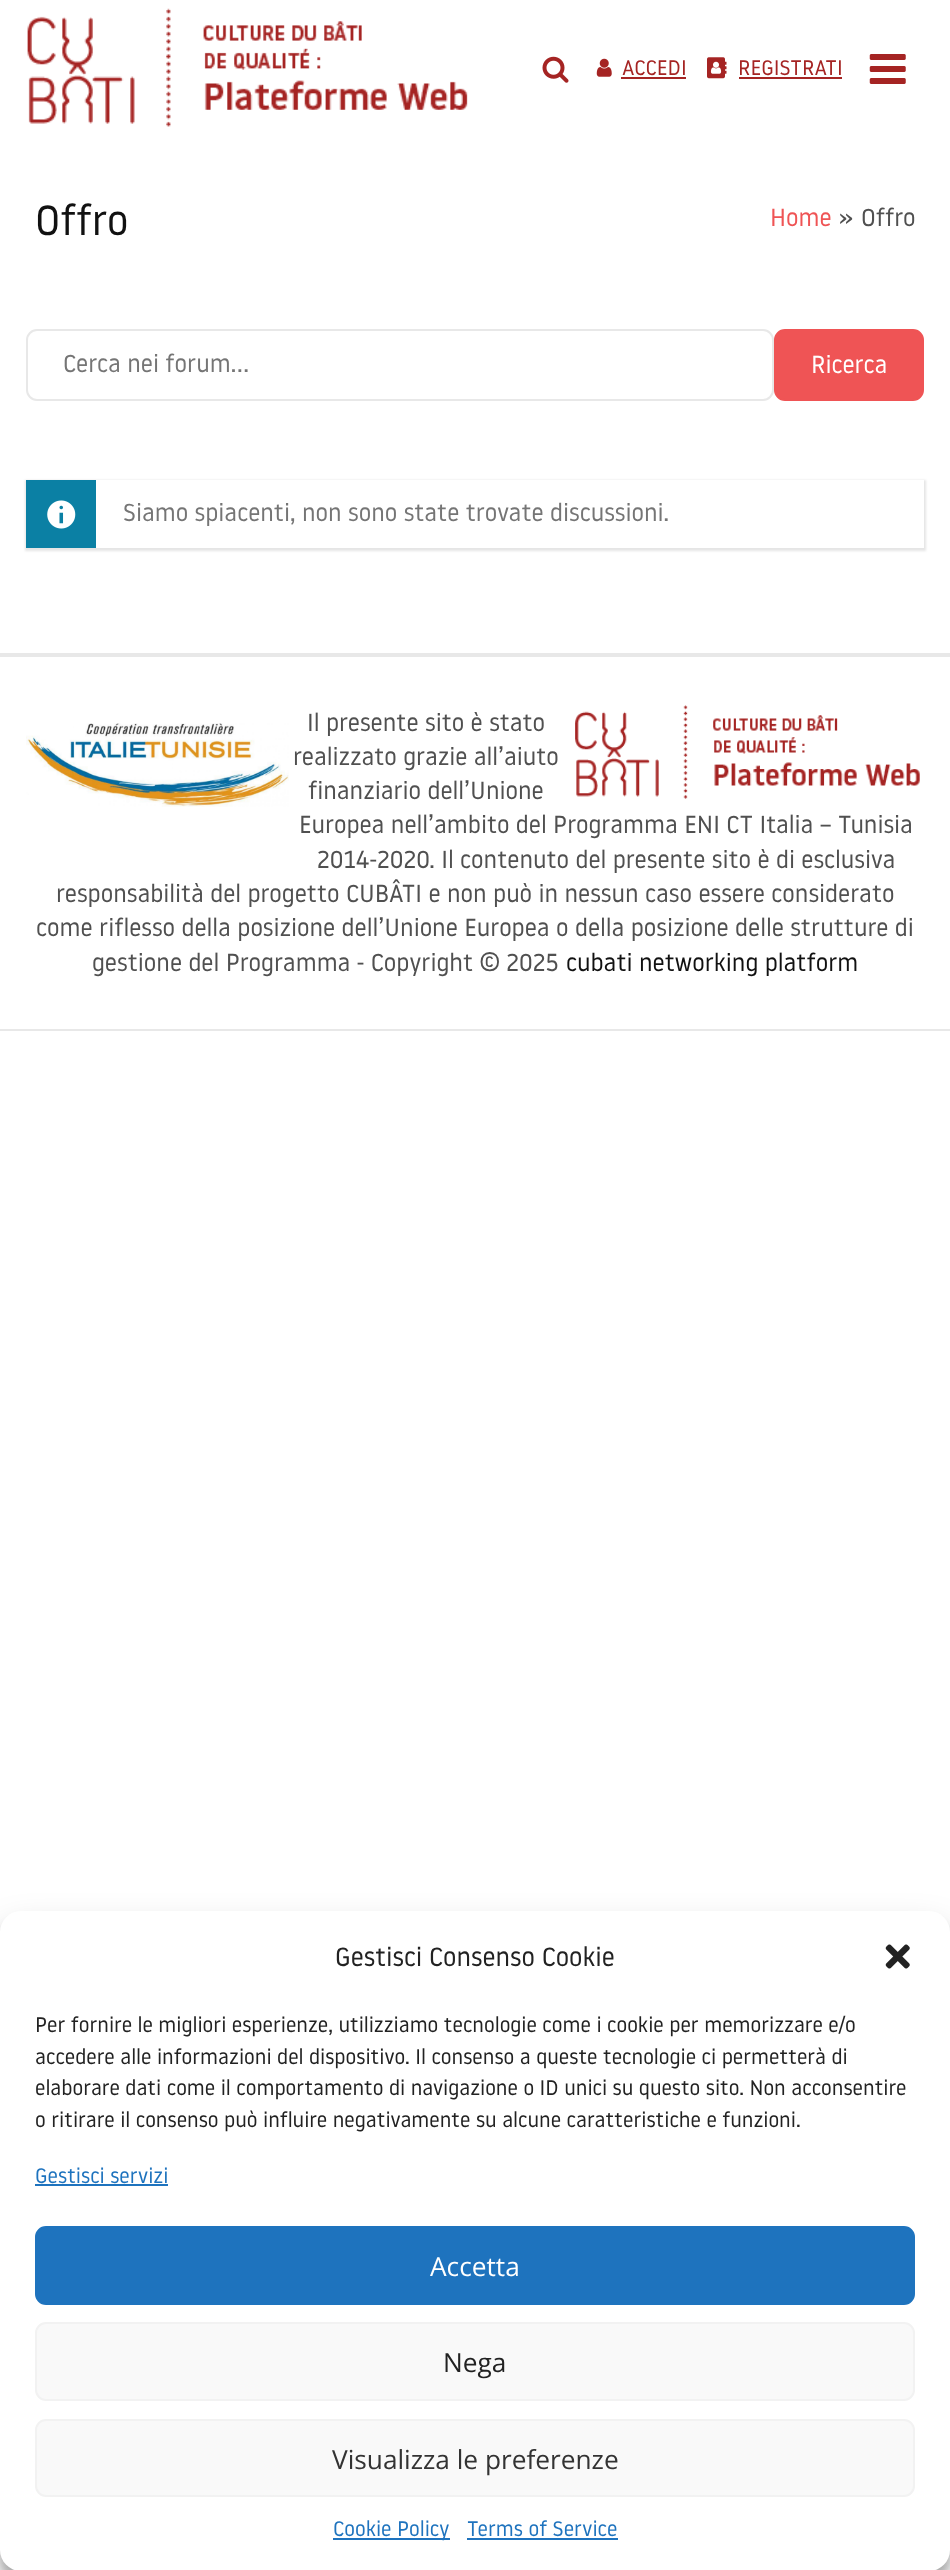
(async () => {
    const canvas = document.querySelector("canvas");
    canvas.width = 950;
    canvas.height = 2570;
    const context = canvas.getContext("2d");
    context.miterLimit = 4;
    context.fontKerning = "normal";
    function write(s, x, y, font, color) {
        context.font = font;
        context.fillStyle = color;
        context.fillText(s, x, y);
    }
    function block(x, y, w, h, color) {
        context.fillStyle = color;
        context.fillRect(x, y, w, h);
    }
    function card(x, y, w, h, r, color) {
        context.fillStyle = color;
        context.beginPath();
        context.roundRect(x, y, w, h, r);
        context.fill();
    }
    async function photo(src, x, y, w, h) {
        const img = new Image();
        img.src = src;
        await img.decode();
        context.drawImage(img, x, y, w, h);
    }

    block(0, 0, 950, 2570, "rgb(255, 255, 255)");
    await photo("media/1.png", 27, 8, 441, 119);
    await photo("media/2.png", 542, 56, 27, 27);
    await photo("media/3.png", 596, 58, 16, 19);
    write("ACCEDI", 622, 75, "21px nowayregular", "rgb(165, 36, 35)");
    block(621, 77, 65, 2, "rgb(165, 36, 35)");
    await photo("media/4.png", 707, 57, 20, 22);
    write("REGISTRATI", 738, 75, "21px nowayregular", "rgb(165, 36, 35)");
    block(739, 77, 103, 2, "rgb(165, 36, 35)");
    await photo("media/5.png", 869, 54, 37, 30);
    write("Offro", 35, 235, "42px nowayregular", "rgb(17, 17, 17)");
    write("Home", 770, 226, "24.5px nowayregular", "rgb(239, 84, 85)");
    write("»", 839, 226, "24.5px nowayregular", "rgb(80, 80, 80)");
    write("Offro", 861, 226, "24.5px nowayregular", "rgb(80, 80, 80)");
    context.beginPath();
    context.roundRect(27, 330, 746, 70, 10);
    context.strokeStyle = "rgb(232, 232, 232)";
    context.lineWidth = 2;
    context.stroke();
    write("Cerca nei forum...", 63, 372, "24.5px nowayregular", "rgb(117, 117, 117)");
    context.fillStyle = "rgb(239, 84, 85)";
    context.beginPath();
    context.roundRect(775, 330, 148, 70, 10);
    context.fill();
    context.strokeStyle = "rgb(239, 84, 85)";
    context.stroke();
    write("Ricerca", 811, 373, "24.5px nowayregular", "rgb(255, 255, 255)");
    context.fillStyle = "rgba(0, 0, 0, 0.1)";
    context.filter = "blur(1px)";
    context.beginPath();
    context.rect(25, 480, 901, 71);
    context.fill();
    context.filter = "none";
    block(96, 480, 828, 68, "rgb(255, 255, 255)");
    block(26, 480, 70, 68, "rgb(11, 128, 164)");
    await photo("media/6.png", 47, 500, 29, 29);
    write("Siamo spiacenti, non sono state trovate discussioni.", 123, 521, "24.5px nowayregular", "rgb(117, 117, 117)");
    block(0, 653, 950, 4, "rgb(232, 232, 232)");
    block(0, 1029, 950, 2, "rgb(232, 232, 232)");
    await photo("media/7.png", 26, 723, 263, 84);
    write("Il presente sito è stato", 307, 731, "24.5px nowayregular", "rgb(80, 80, 80)");
    await photo("media/8.png", 575, 705, 345, 94);
    write("realizzato grazie all’aiuto", 293, 765, "24.5px nowayregular", "rgb(80, 80, 80)");
    write("finanziario dell’Unione", 308, 799, "24.5px nowayregular", "rgb(80, 80, 80)");
    write("Europea nell’ambito del Programma ENI CT Italia – Tunisia", 299, 833, "24.5px nowayregular", "rgb(80, 80, 80)");
    write("2014-2020. Il contenuto del presente sito è di esclusiva", 317, 868, "24.5px nowayregular", "rgb(80, 80, 80)");
    write("responsabilità del progetto CUBÂTI e non può in nessun caso essere considerato", 56, 902, "24.5px nowayregular", "rgb(80, 80, 80)");
    write("come riflesso della posizione dell’Unione Europea o della posizione delle strutture di", 36, 936, "24.5px nowayregular", "rgb(80, 80, 80)");
    write("gestione del Programma - Copyright © 2025", 92, 971, "24.5px nowayregular", "rgb(80, 80, 80)");
    write("cubati networking platform", 566, 971, "24.5px nowayregular", "rgb(17, 17, 17)");
    context.fillStyle = "rgba(0, 0, 0, 0.23)";
    context.filter = "blur(5px)";
    context.beginPath();
    context.roundRect(0, 1922, 950, 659, 21);
    context.fill();
    context.filter = "none";
    context.fillStyle = "rgba(0, 0, 0, 0.19)";
    context.filter = "blur(17.5px)";
    context.beginPath();
    context.roundRect(0, 1929, 950, 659, 21);
    context.fill();
    context.filter = "none";
    card(0, 1911, 950, 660, 21, "rgb(255, 255, 255)");
    write("Gestisci Consenso Cookie", 335, 1966, "26.25px nowayregular", "rgb(34, 34, 34)");
    await photo("media/9.png", 885, 1944, 25, 25);
    write("Per fornire le migliori esperienze, utilizziamo tecnologie come i cookie per memorizzare e/o", 35, 2032, "21px nowayregular", "rgb(34, 34, 34)");
    write("accedere alle informazioni del dispositivo. Il consenso a queste tecnologie ci permetterà di", 35, 2064, "21px nowayregular", "rgb(34, 34, 34)");
    write("elaborare dati come il comportamento di navigazione o ID unici su questo sito. Non acconsentire", 35, 2095, "21px nowayregular", "rgb(34, 34, 34)");
    write("o ritirare il consenso può influire negativamente su alcune caratteristiche e funzioni.", 35, 2127, "21px nowayregular", "rgb(34, 34, 34)");
    write("Gestisci servizi", 35, 2183, "21px nowayregular", "rgb(30, 115, 190)");
    block(35, 2184, 133, 2, "rgb(30, 115, 190)");
    context.beginPath();
    context.roundRect(36, 2227, 878, 77, 10);
    context.fill();
    context.strokeStyle = "rgb(30, 115, 190)";
    context.stroke();
    write("Accetta", 430, 2276, "26.25px Open Sans", "rgb(255, 255, 255)");
    context.fillStyle = "rgb(249, 249, 249)";
    context.beginPath();
    context.roundRect(36, 2323, 878, 77, 10);
    context.fill();
    context.strokeStyle = "rgb(242, 242, 242)";
    context.stroke();
    write("Nega", 443, 2372, "26.25px Open Sans", "rgb(34, 34, 34)");
    context.fillStyle = "rgb(249, 249, 249)";
    context.beginPath();
    context.roundRect(36, 2420, 878, 76, 10);
    context.fill();
    context.stroke();
    write("Visualizza le preferenze", 332, 2469, "26.25px Open Sans", "rgb(51, 51, 51)");
    block(333, 2538, 117, 2, "rgb(30, 115, 190)");
    write("Cookie Policy", 333, 2536, "21px nowayregular", "rgb(30, 115, 190)");
    write("Terms of Service", 467, 2536, "21px nowayregular", "rgb(30, 115, 190)");
    block(467, 2538, 151, 2, "rgb(30, 115, 190)");
})();
